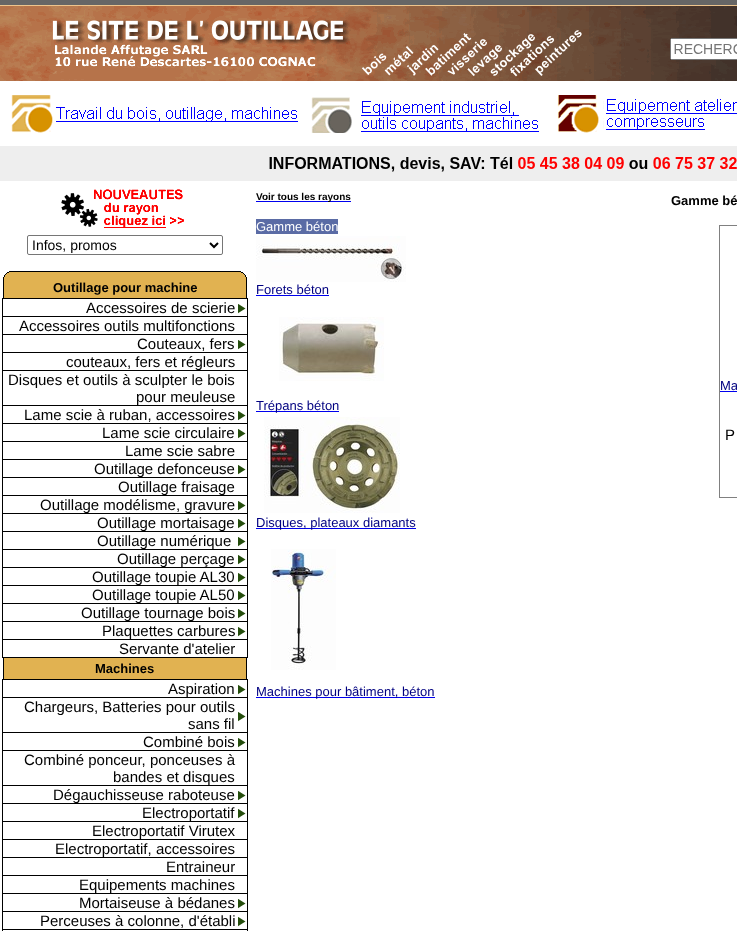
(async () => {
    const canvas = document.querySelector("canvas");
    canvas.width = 737;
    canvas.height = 931;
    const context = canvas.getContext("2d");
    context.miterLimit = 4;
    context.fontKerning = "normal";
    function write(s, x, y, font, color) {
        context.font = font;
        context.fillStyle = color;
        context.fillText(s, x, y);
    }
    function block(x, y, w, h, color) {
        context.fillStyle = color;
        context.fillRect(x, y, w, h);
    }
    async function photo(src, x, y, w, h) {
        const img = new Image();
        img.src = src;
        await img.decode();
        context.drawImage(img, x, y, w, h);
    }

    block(0, 0, 737, 931, "rgb(255, 255, 255)");
    await photo("media/1.png", 0, 0, 737, 181);
    await photo("media/2.png", 61, 189, 123, 39);
    context.beginPath();
    context.roundRect(27.5, 235.5, 195, 19, 1.5);
    context.strokeStyle = "rgb(118, 118, 118)";
    context.stroke();
    context.beginPath();
    context.moveTo(210, 243);
    context.lineTo(214, 247);
    context.lineTo(218, 243);
    context.strokeStyle = "rgb(0, 0, 0)";
    context.lineWidth = 2;
    context.stroke();
    write("Infos, promos", 32, 250, "14px Liberation Sans", "rgb(0, 0, 0)");
    await photo("media/3.png", 4, 272, 5, 5);
    block(9, 271, 232, 1, "rgb(0, 0, 0)");
    block(9, 272, 232, 5, "rgb(225, 178, 81)");
    await photo("media/4.png", 241, 272, 5, 5);
    block(4, 277, 242, 21, "rgb(225, 178, 81)");
    block(246, 277, 1, 21, "rgb(0, 0, 0)");
    block(3, 277, 1, 21, "rgb(0, 0, 0)");
    write("Outillage pour machine", 53, 292, "bold 13px Liberation Sans", "rgb(0, 0, 0)");
    block(247, 298, 1, 360, "rgb(0, 0, 0)");
    block(2, 298, 1, 360, "rgb(0, 0, 0)");
    block(3, 298, 244, 1, "rgb(0, 0, 0)");
    write("Accessoires de scierie", 86, 313, "15px Liberation Sans", "rgb(0, 0, 0)");
    await photo("media/5.png", 238, 304, 8, 10);
    block(3, 316, 244, 1, "rgb(0, 0, 0)");
    write("Accessoires outils multifonctions", 19, 331, "15px Liberation Sans", "rgb(0, 0, 0)");
    block(3, 334, 244, 1, "rgb(0, 0, 0)");
    write("Couteaux, fers", 137, 349, "15px Liberation Sans", "rgb(0, 0, 0)");
    await photo("media/5.png", 238, 340, 8, 10);
    block(3, 352, 244, 1, "rgb(0, 0, 0)");
    block(3, 370, 244, 1, "rgb(0, 0, 0)");
    write("couteaux, fers et régleurs", 66, 367, "15px Liberation Sans", "rgb(0, 0, 0)");
    write("Disques et outils à sculpter le bois", 8, 385, "15px Liberation Sans", "rgb(0, 0, 0)");
    block(3, 405, 244, 1, "rgb(0, 0, 0)");
    write("pour meuleuse", 136, 402, "15px Liberation Sans", "rgb(0, 0, 0)");
    write("Lame scie à ruban, accessoires", 24, 420, "15px Liberation Sans", "rgb(0, 0, 0)");
    await photo("media/5.png", 238, 411, 8, 10);
    block(3, 423, 244, 1, "rgb(0, 0, 0)");
    write("Lame scie circulaire", 102, 438, "15px Liberation Sans", "rgb(0, 0, 0)");
    await photo("media/5.png", 238, 429, 8, 10);
    block(3, 441, 244, 1, "rgb(0, 0, 0)");
    write("Lame scie sabre", 125, 456, "15px Liberation Sans", "rgb(0, 0, 0)");
    block(3, 459, 244, 1, "rgb(0, 0, 0)");
    block(3, 477, 244, 1, "rgb(0, 0, 0)");
    write("Outillage defonceuse", 94, 474, "15px Liberation Sans", "rgb(0, 0, 0)");
    await photo("media/5.png", 238, 465, 8, 10);
    block(3, 495, 244, 1, "rgb(0, 0, 0)");
    write("Outillage fraisage", 118, 492, "15px Liberation Sans", "rgb(0, 0, 0)");
    block(3, 513, 244, 1, "rgb(0, 0, 0)");
    write("Outillage modélisme, gravure", 40, 510, "15px Liberation Sans", "rgb(0, 0, 0)");
    await photo("media/5.png", 238, 501, 8, 10);
    block(3, 531, 244, 1, "rgb(0, 0, 0)");
    write("Outillage mortaisage", 97, 528, "15px Liberation Sans", "rgb(0, 0, 0)");
    await photo("media/5.png", 238, 519, 8, 10);
    block(3, 549, 244, 1, "rgb(0, 0, 0)");
    write("Outillage numérique", 97, 546, "15px Liberation Sans", "rgb(0, 0, 0)");
    await photo("media/5.png", 238, 537, 8, 10);
    block(3, 567, 244, 1, "rgb(0, 0, 0)");
    write("Outillage perçage", 117, 564, "15px Liberation Sans", "rgb(0, 0, 0)");
    await photo("media/5.png", 238, 555, 8, 10);
    block(3, 585, 244, 1, "rgb(0, 0, 0)");
    write("Outillage toupie AL30", 92, 582, "15px Liberation Sans", "rgb(0, 0, 0)");
    await photo("media/5.png", 238, 573, 8, 10);
    block(3, 603, 244, 1, "rgb(0, 0, 0)");
    write("Outillage toupie AL50", 92, 600, "15px Liberation Sans", "rgb(0, 0, 0)");
    await photo("media/5.png", 238, 591, 8, 10);
    block(3, 621, 244, 1, "rgb(0, 0, 0)");
    write("Outillage tournage bois", 81, 618, "15px Liberation Sans", "rgb(0, 0, 0)");
    await photo("media/5.png", 238, 609, 8, 10);
    block(3, 639, 244, 1, "rgb(0, 0, 0)");
    write("Plaquettes carbures", 102, 636, "15px Liberation Sans", "rgb(0, 0, 0)");
    await photo("media/5.png", 238, 627, 8, 10);
    block(3, 657, 244, 1, "rgb(0, 0, 0)");
    write("Servante d'atelier", 119, 654, "15px Liberation Sans", "rgb(0, 0, 0)");
    block(4, 658, 242, 21, "rgb(225, 178, 81)");
    block(246, 658, 1, 21, "rgb(0, 0, 0)");
    block(3, 658, 1, 21, "rgb(0, 0, 0)");
    write("Machines", 95, 673, "bold 13px Liberation Sans", "rgb(0, 0, 0)");
    block(247, 679, 1, 252, "rgb(0, 0, 0)");
    block(2, 679, 1, 252, "rgb(0, 0, 0)");
    block(3, 679, 244, 1, "rgb(0, 0, 0)");
    block(3, 697, 244, 1, "rgb(0, 0, 0)");
    write("Aspiration", 168, 694, "15px Liberation Sans", "rgb(0, 0, 0)");
    await photo("media/5.png", 238, 685, 8, 10);
    write("Chargeurs, Batteries pour outils", 24, 712, "15px Liberation Sans", "rgb(0, 0, 0)");
    write("sans fil", 188, 729, "15px Liberation Sans", "rgb(0, 0, 0)");
    await photo("media/5.png", 238, 712, 8, 10);
    block(3, 732, 244, 1, "rgb(0, 0, 0)");
    write("Combiné bois", 143, 747, "15px Liberation Sans", "rgb(0, 0, 0)");
    await photo("media/5.png", 238, 738, 8, 10);
    block(3, 750, 244, 1, "rgb(0, 0, 0)");
    write("Combiné ponceur, ponceuses à", 24, 765, "15px Liberation Sans", "rgb(0, 0, 0)");
    block(3, 785, 244, 1, "rgb(0, 0, 0)");
    write("bandes et disques", 113, 782, "15px Liberation Sans", "rgb(0, 0, 0)");
    block(3, 803, 244, 1, "rgb(0, 0, 0)");
    write("Dégauchisseuse raboteuse", 53, 800, "15px Liberation Sans", "rgb(0, 0, 0)");
    await photo("media/5.png", 238, 791, 8, 10);
    block(3, 821, 244, 1, "rgb(0, 0, 0)");
    write("Electroportatif", 142, 818, "15px Liberation Sans", "rgb(0, 0, 0)");
    await photo("media/5.png", 238, 809, 8, 10);
    block(3, 839, 244, 1, "rgb(0, 0, 0)");
    write("Electroportatif Virutex", 92, 836, "15px Liberation Sans", "rgb(0, 0, 0)");
    block(3, 857, 244, 1, "rgb(0, 0, 0)");
    write("Electroportatif, accessoires", 55, 854, "15px Liberation Sans", "rgb(0, 0, 0)");
    write("Entraineur", 166, 872, "15px Liberation Sans", "rgb(0, 0, 0)");
    block(3, 875, 244, 1, "rgb(0, 0, 0)");
    block(3, 893, 244, 1, "rgb(0, 0, 0)");
    write("Equipements machines", 79, 890, "15px Liberation Sans", "rgb(0, 0, 0)");
    write("Mortaiseuse à bédanes", 79, 908, "15px Liberation Sans", "rgb(0, 0, 0)");
    await photo("media/5.png", 238, 899, 8, 10);
    block(3, 911, 244, 1, "rgb(0, 0, 0)");
    write("Perceuses à colonne, d'établi", 40, 926, "15px Liberation Sans", "rgb(0, 0, 0)");
    await photo("media/5.png", 238, 917, 8, 10);
    block(3, 929, 244, 1, "rgb(0, 0, 0)");
    block(256, 201, 95, 1, "rgb(0, 0, 238)");
    write("Voir tous les rayons", 256, 200, "bold 10px Liberation Sans", "rgb(0, 0, 0)");
    write("Gamme bé", 671, 205, "bold 13px Liberation Sans", "rgb(0, 0, 0)");
    block(256, 219, 82, 15, "rgb(90, 107, 165)");
    write("Gamme béton", 256, 231, "13px Liberation Sans", "rgb(255, 255, 255)");
    await photo("media/6.png", 256, 236, 150, 46);
    write("Forets béton", 256, 294, "13px Liberation Sans", "rgb(0, 0, 128)");
    block(256, 295, 73, 1, "rgb(0, 0, 238)");
    await photo("media/7.png", 279, 317, 105, 64);
    block(256, 411, 83, 1, "rgb(0, 0, 238)");
    write("Trépans béton", 256, 410, "13px Liberation Sans", "rgb(0, 0, 128)");
    await photo("media/8.png", 264, 417, 136, 96);
    block(256, 528, 160, 1, "rgb(0, 0, 238)");
    write("Disques, plateaux diamants", 256, 527, "13px Liberation Sans", "rgb(0, 0, 128)");
    await photo("media/9.png", 271, 549, 65, 121);
    block(256, 697, 179, 1, "rgb(0, 0, 238)");
    write("Machines pour bâtiment, béton", 256, 696, "13px Liberation Sans", "rgb(0, 0, 128)");
    block(719, 225, 18, 1, "rgb(128, 128, 128)");
    block(719, 226, 1, 272, "rgb(128, 128, 128)");
    write("Ma", 720, 390, "13px Liberation Sans", "rgb(0, 0, 128)");
    block(720, 391, 17, 1, "rgb(0, 0, 238)");
    write("P", 725, 440, "15px Liberation Sans", "rgb(0, 0, 0)");
    block(720, 497, 17, 1, "rgb(128, 128, 128)");
})();
